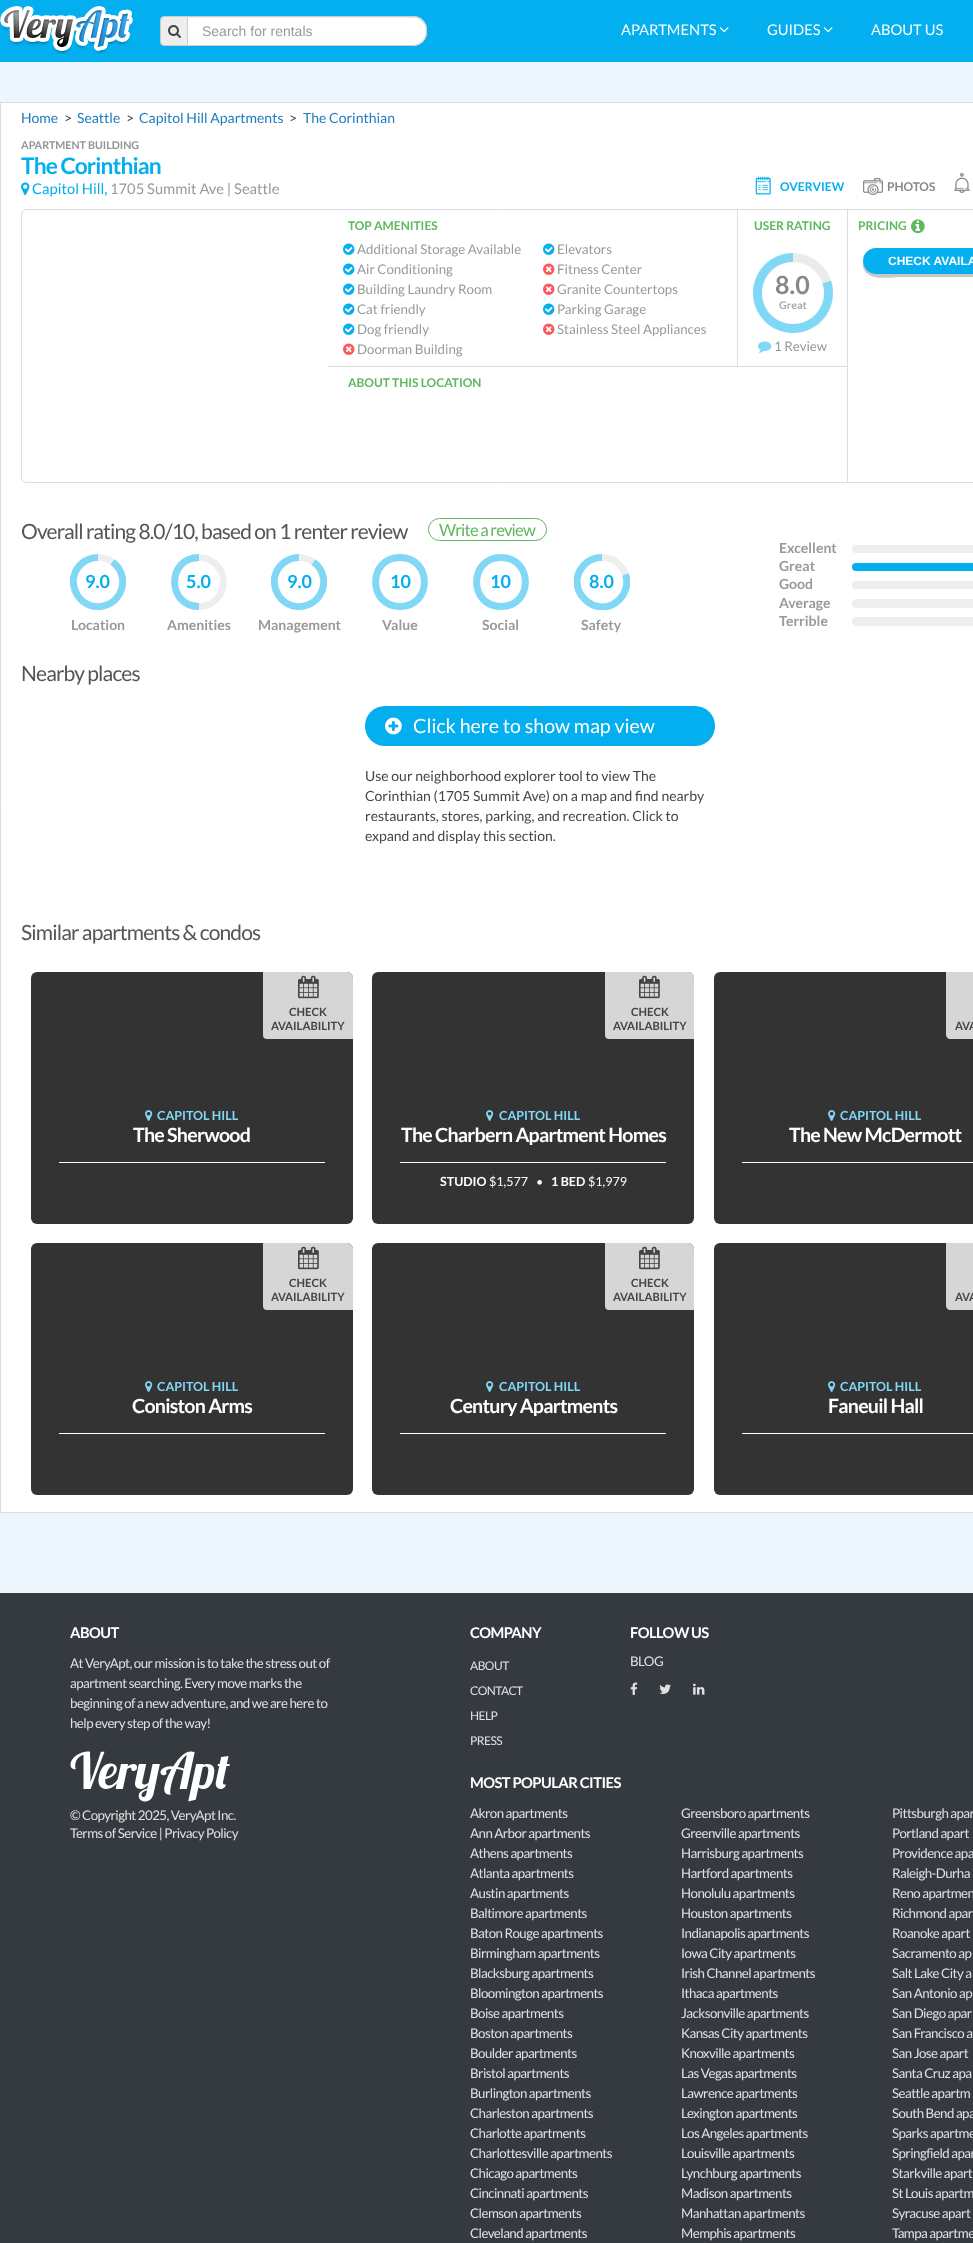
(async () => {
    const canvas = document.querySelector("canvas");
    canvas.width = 973;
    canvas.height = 2243;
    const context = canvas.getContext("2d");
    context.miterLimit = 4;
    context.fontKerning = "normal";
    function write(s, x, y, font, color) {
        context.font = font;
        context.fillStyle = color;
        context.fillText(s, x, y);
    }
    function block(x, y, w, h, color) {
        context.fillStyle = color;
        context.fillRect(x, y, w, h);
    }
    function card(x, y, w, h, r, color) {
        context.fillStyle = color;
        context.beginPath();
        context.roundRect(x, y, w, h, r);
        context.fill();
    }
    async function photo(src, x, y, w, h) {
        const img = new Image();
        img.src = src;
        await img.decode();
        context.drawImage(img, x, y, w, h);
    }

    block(0, 0, 973, 2243, "rgb(236, 246, 252)");
    block(0, 0, 973, 62, "rgb(3, 175, 238)");
    await photo("media/1.png", 0, 6, 133, 49);
    context.fillStyle = "rgb(238, 238, 238)";
    context.beginPath();
    context.roundRect(160.5, 16.5, 27, 29, [3.5, 0, 0, 3.5]);
    context.fill();
    context.strokeStyle = "rgb(204, 204, 204)";
    context.stroke();
    await photo("media/2.png", 168, 25, 13, 13);
    context.fillStyle = "rgb(255, 255, 255)";
    context.beginPath();
    context.roundRect(187, 16, 240, 30, [0, 14, 14, 0]);
    context.fill();
    context.fillStyle = "rgb(236, 236, 236)";
    context.beginPath();
    context.moveTo(188, 18);
    context.lineTo(413, 18);
    context.bezierCurveTo(420, 18, 426, 24, 426, 31);
    context.lineTo(426, 30);
    context.bezierCurveTo(426, 23, 420, 17, 413, 17);
    context.lineTo(188, 17);
    context.closePath();
    context.fill();
    context.beginPath();
    context.roundRect(187.5, 16.5, 239, 29, [0, 13.5, 13.5, 0]);
    context.stroke();
    write("Search for rentals", 202, 36, "14px Liberation Sans", "rgb(153, 153, 153)");
    write("APARTMENTS", 621, 35, "14.75px Lato", "rgb(255, 255, 255)");
    await photo("media/3.png", 719, 27, 10, 6);
    write("GUIDES", 767, 35, "14.75px Lato", "rgb(255, 255, 255)");
    await photo("media/3.png", 823, 27, 10, 6);
    write("ABOUT US", 871, 35, "14.75px Lato", "rgb(255, 255, 255)");
    context.beginPath();
    context.rect(0.5, 102.5, 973, 1410);
    context.fill();
    context.strokeStyle = "rgb(221, 221, 221)";
    context.stroke();
    write("Home", 21, 123, "14px Lato", "rgb(28, 124, 190)");
    write(">", 64, 123, "14px Lato", "rgb(68, 68, 68)");
    write("Seattle", 77, 123, "14px Lato", "rgb(28, 124, 190)");
    write(">", 126, 123, "14px Lato", "rgb(68, 68, 68)");
    write("Capitol Hill Apartments", 139, 123, "14px Lato", "rgb(28, 124, 190)");
    write(">", 289, 123, "14px Lato", "rgb(68, 68, 68)");
    write("The Corinthian", 303, 123, "14px Lato", "rgb(28, 124, 190)");
    write("APARTMENT BUILDING", 21, 149, "bold 10.75px Lato", "rgb(147, 147, 147)");
    context.letterSpacing = "-0.9px";
    write("The Corinthian", 21, 174, "bold 22.75px Lato", "rgb(3, 175, 238)");
    await photo("media/4.png", 21, 182, 9, 13);
    context.letterSpacing = "0px";
    write("Capitol Hill,", 32, 194, "14.75px Lato", "rgb(3, 175, 238)");
    write("1705 Summit Ave | Seattle", 110, 194, "14.75px Lato", "rgb(153, 153, 153)");
    await photo("media/5.png", 755, 176, 16, 19);
    write("OVERVIEW", 780, 191, "bold 12px Lato", "rgb(3, 175, 238)");
    await photo("media/6.png", 863, 178, 20, 17);
    write("PHOTOS", 887, 191, "bold 12px Lato", "rgb(136, 136, 136)");
    await photo("media/7.png", 954, 173, 16, 20);
    context.beginPath();
    context.roundRect(21.5, 209.5, 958, 273, 5.5);
    context.stroke();
    block(737, 210, 1, 156, "rgb(221, 221, 221)");
    write("TOP AMENITIES", 348, 230, "bold 12px Lato", "rgb(95, 183, 96)");
    await photo("media/8.png", 343, 243, 12, 12);
    write("Additional Storage Available", 357, 254, "13.3px Lato", "rgb(153, 153, 153)");
    await photo("media/8.png", 543, 243, 12, 12);
    write("Elevators", 557, 254, "13.3px Lato", "rgb(153, 153, 153)");
    await photo("media/8.png", 343, 263, 12, 12);
    write("Air Conditioning", 357, 274, "13.3px Lato", "rgb(153, 153, 153)");
    await photo("media/9.png", 543, 263, 12, 12);
    write("Fitness Center", 557, 274, "13.3px Lato", "rgb(153, 153, 153)");
    await photo("media/8.png", 343, 283, 12, 12);
    write("Building Laundry Room", 357, 294, "13.3px Lato", "rgb(153, 153, 153)");
    await photo("media/9.png", 543, 283, 12, 12);
    write("Granite Countertops", 557, 294, "13.3px Lato", "rgb(153, 153, 153)");
    await photo("media/8.png", 343, 303, 12, 12);
    write("Cat friendly", 357, 314, "13.3px Lato", "rgb(153, 153, 153)");
    await photo("media/8.png", 543, 303, 12, 12);
    write("Parking Garage", 557, 314, "13.3px Lato", "rgb(153, 153, 153)");
    await photo("media/8.png", 343, 323, 12, 12);
    write("Dog friendly", 357, 334, "13.3px Lato", "rgb(153, 153, 153)");
    await photo("media/9.png", 543, 323, 12, 12);
    write("Stainless Steel Appliances", 557, 334, "13.3px Lato", "rgb(153, 153, 153)");
    await photo("media/9.png", 343, 343, 12, 12);
    write("Doorman Building", 357, 354, "13.3px Lato", "rgb(153, 153, 153)");
    write("USER RATING", 754, 230, "bold 12px Lato", "rgb(95, 183, 96)");
    await photo("media/10.png", 753, 253, 80, 80);
    write("8.0", 775, 294, "bold 25px Lato", "rgb(136, 136, 136)");
    write("Great", 779, 309, "bold 10.75px Lato", "rgb(170, 170, 170)");
    await photo("media/11.png", 758, 341, 14, 12);
    write("1 Review", 774, 351, "13.3px Lato", "rgb(153, 153, 153)");
    block(847, 210, 1, 272, "rgb(221, 221, 221)");
    write("PRICING", 858, 230, "bold 12px Lato", "rgb(95, 183, 96)");
    await photo("media/12.png", 911, 219, 14, 15);
    context.fillStyle = "rgb(200, 200, 200)";
    context.beginPath();
    context.moveTo(863, 262);
    context.bezierCurveTo(861, 283, 892, 277, 901, 277);
    context.lineTo(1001, 277);
    context.bezierCurveTo(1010, 277, 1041, 283, 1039, 262);
    context.bezierCurveTo(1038, 269, 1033, 274, 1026, 274);
    context.lineTo(876, 274);
    context.bezierCurveTo(869, 274, 864, 269, 863, 262);
    context.closePath();
    context.fill();
    card(863, 248, 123, 26, 13, "rgb(3, 175, 238)");
    write("CHECK AVAILA", 888, 265, "bold 12px Liberation Sans", "rgb(255, 255, 255)");
    block(328, 366, 519, 1, "rgb(221, 221, 221)");
    write("ABOUT THIS LOCATION", 348, 387, "bold 12px Lato", "rgb(95, 183, 96)");
    context.letterSpacing = "-0.85px";
    write("Overall rating 8.0/10, based on 1 renter review", 21, 539, "21px Lato", "rgb(85, 85, 85)");
    context.beginPath();
    context.roundRect(428.5, 518.5, 118, 22, 11);
    context.strokeStyle = "rgb(95, 183, 96)";
    context.stroke();
    write("Write a review", 439, 536, "16.75px Lato", "rgb(95, 183, 96)");
    context.beginPath();
    context.arc(98, 582, 24.5, 0, Math.PI * 2);
    context.strokeStyle = "rgb(238, 238, 238)";
    context.lineWidth = 6.7;
    context.stroke();
    context.save();
    context.beginPath();
    context.rect(70, 554, 56, 56);
    context.clip();
    context.beginPath();
    context.moveTo(98, 557.5);
    context.bezierCurveTo(86, 557.5, 75.5, 566, 73.5, 578);
    context.bezierCurveTo(72, 590, 79, 601.5, 90.5, 605.5);
    context.bezierCurveTo(102, 609, 114.5, 604, 120, 593);
    context.bezierCurveTo(125.5, 582.5, 122.5, 569, 112.5, 562);
    context.strokeStyle = "rgb(129, 215, 246)";
    context.lineWidth = 6.9;
    context.stroke();
    context.restore();
    context.letterSpacing = "0px";
    write("9.0", 85, 588, "bold 18px Lato", "rgb(3, 175, 238)");
    write("Location", 71, 630, "bold 14px Lato", "rgb(153, 153, 153)");
    context.beginPath();
    context.arc(199, 582, 24.5, 0, Math.PI * 2);
    context.stroke();
    context.beginPath();
    context.moveTo(199, 557.5);
    context.bezierCurveTo(166.5, 557.5, 166.5, 606.5, 199, 606.5);
    context.strokeStyle = "rgb(129, 215, 246)";
    context.lineWidth = 6.9;
    context.stroke();
    write("5.0", 186, 588, "bold 18px Lato", "rgb(3, 175, 238)");
    write("Amenities", 167, 630, "bold 14px Lato", "rgb(153, 153, 153)");
    context.beginPath();
    context.arc(299, 582, 24.5, 0, Math.PI * 2);
    context.strokeStyle = "rgb(238, 238, 238)";
    context.lineWidth = 6.7;
    context.stroke();
    context.save();
    context.beginPath();
    context.rect(271, 554, 56, 56);
    context.clip();
    context.beginPath();
    context.moveTo(299, 557.5);
    context.bezierCurveTo(287, 557.5, 276.5, 566, 274.5, 578);
    context.bezierCurveTo(273, 590, 280, 601.5, 291.5, 605.5);
    context.bezierCurveTo(303, 609, 315.5, 604, 321, 593);
    context.bezierCurveTo(326.5, 582.5, 323.5, 569, 313.5, 562);
    context.strokeStyle = "rgb(129, 215, 246)";
    context.lineWidth = 6.9;
    context.stroke();
    context.restore();
    write("9.0", 287, 588, "bold 18px Lato", "rgb(3, 175, 238)");
    write("Management", 258, 630, "bold 14px Lato", "rgb(153, 153, 153)");
    context.beginPath();
    context.arc(400, 582, 24.5, 0, Math.PI * 2);
    context.stroke();
    context.beginPath();
    context.moveTo(400, 557.5);
    context.bezierCurveTo(367.5, 557.5, 367.5, 606.5, 400, 606.5);
    context.bezierCurveTo(432.5, 606.5, 432.5, 557.5, 400, 557.5);
    context.strokeStyle = "rgb(129, 215, 246)";
    context.lineWidth = 6.9;
    context.stroke();
    write("10", 390, 588, "bold 18px Lato", "rgb(3, 175, 238)");
    write("Value", 382, 630, "bold 14px Lato", "rgb(153, 153, 153)");
    context.beginPath();
    context.arc(501, 582, 24.5, 0, Math.PI * 2);
    context.strokeStyle = "rgb(238, 238, 238)";
    context.lineWidth = 6.7;
    context.stroke();
    context.beginPath();
    context.moveTo(501, 557.5);
    context.bezierCurveTo(468.5, 557.5, 468.5, 606.5, 501, 606.5);
    context.bezierCurveTo(533.5, 606.5, 533.5, 557.5, 501, 557.5);
    context.strokeStyle = "rgb(129, 215, 246)";
    context.lineWidth = 6.9;
    context.stroke();
    write("10", 490, 588, "bold 18px Lato", "rgb(3, 175, 238)");
    write("Social", 482, 630, "bold 14px Lato", "rgb(153, 153, 153)");
    context.beginPath();
    context.arc(602, 582, 24.5, 0, Math.PI * 2);
    context.strokeStyle = "rgb(238, 238, 238)";
    context.lineWidth = 6.7;
    context.stroke();
    context.save();
    context.beginPath();
    context.rect(574, 554, 56, 56);
    context.clip();
    context.beginPath();
    context.moveTo(602, 557.5);
    context.bezierCurveTo(595.5, 557.5, 589, 560, 584.5, 564.5);
    context.bezierCurveTo(561.5, 587.5, 596.5, 622.5, 619.5, 599.5);
    context.bezierCurveTo(626, 593, 628.5, 583, 625.5, 574.5);
    context.strokeStyle = "rgb(129, 215, 246)";
    context.lineWidth = 6.9;
    context.stroke();
    context.restore();
    write("8.0", 589, 588, "bold 18px Lato", "rgb(3, 175, 238)");
    write("Safety", 581, 630, "bold 14px Lato", "rgb(153, 153, 153)");
    write("Excellent", 779, 553, "bold 14px Lato", "rgb(153, 153, 153)");
    card(852, 545, 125, 8, 4, "rgb(238, 238, 238)");
    write("Great", 779, 571, "bold 14px Lato", "rgb(153, 153, 153)");
    card(852, 563, 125, 8, 4, "rgb(3, 175, 238)");
    write("Good", 779, 589, "bold 14px Lato", "rgb(153, 153, 153)");
    card(852, 581, 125, 8, 4, "rgb(238, 238, 238)");
    write("Average", 779, 608, "bold 14px Lato", "rgb(153, 153, 153)");
    card(852, 599, 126, 9, 4.5, "rgb(238, 238, 238)");
    write("Terrible", 779, 626, "bold 14px Lato", "rgb(153, 153, 153)");
    card(852, 617, 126, 9, 4.5, "rgb(238, 238, 238)");
    context.letterSpacing = "-0.85px";
    write("Nearby places", 21, 681, "21px Lato", "rgb(85, 85, 85)");
    card(365, 706, 350, 40, 20, "rgb(3, 175, 238)");
    await photo("media/13.png", 385, 717, 17, 18);
    context.letterSpacing = "0px";
    write("Click here to show map view", 413, 733, "19.6px Lato", "rgb(255, 255, 255)");
    write("Use our neighborhood explorer tool to view The", 365, 781, "14px Lato", "rgb(68, 68, 68)");
    write("Corinthian (1705 Summit Ave) on a map and find nearby", 365, 801, "14px Lato", "rgb(68, 68, 68)");
    write("restaurants, stores, parking, and recreation. Click to", 365, 821, "14px Lato", "rgb(68, 68, 68)");
    write("expand and display this section.", 365, 841, "14px Lato", "rgb(68, 68, 68)");
    context.letterSpacing = "-0.85px";
    write("Similar apartments & condos", 21, 940, "21px Lato", "rgb(85, 85, 85)");
    card(31, 972, 322, 252, 6, "rgb(51, 51, 51)");
    context.fillStyle = "rgba(255, 255, 255, 0.8)";
    context.beginPath();
    context.roundRect(263, 972, 90, 67, [0, 6, 0, 4]);
    context.fill();
    await photo("media/14.png", 298, 975, 21, 24);
    context.letterSpacing = "0px";
    write("CHECK", 289, 1016, "bold 11.25px Lato", "rgb(68, 68, 68)");
    write("AVAILABILITY", 271, 1030, "bold 11.25px Lato", "rgb(68, 68, 68)");
    await photo("media/15.png", 145, 1110, 8, 11);
    write("CAPITOL HILL", 157, 1120, "bold 12.5px Lato", "rgb(129, 215, 246)");
    context.letterSpacing = "-0.75px";
    write("The Sherwood", 133, 1142, "bold 19.6px Lato", "rgb(255, 255, 255)");
    block(59, 1162, 266, 1, "rgb(255, 255, 255)");
    card(372, 972, 322, 252, 6, "rgb(51, 51, 51)");
    context.fillStyle = "rgba(255, 255, 255, 0.8)";
    context.beginPath();
    context.roundRect(605, 972, 89, 67, [0, 6, 0, 4]);
    context.fill();
    await photo("media/14.png", 639, 975, 21, 24);
    context.letterSpacing = "0px";
    write("CHECK", 631, 1016, "bold 11.25px Lato", "rgb(68, 68, 68)");
    write("AVAILABILITY", 613, 1030, "bold 11.25px Lato", "rgb(68, 68, 68)");
    await photo("media/15.png", 486, 1110, 8, 11);
    write("CAPITOL HILL", 499, 1120, "bold 12.5px Lato", "rgb(129, 215, 246)");
    context.save();
    context.beginPath();
    context.rect(372, 1125, 322, 20);
    context.clip();
    context.letterSpacing = "-0.75px";
    write("The Charbern Apartment Homes", 401, 1142, "bold 19.6px Lato", "rgb(255, 255, 255)");
    context.restore();
    block(400, 1162, 266, 1, "rgb(255, 255, 255)");
    write("STUDIO", 440, 1186, "bold 12.5px Lato", "rgb(255, 255, 255)");
    write("$1,577", 489, 1186, "12.5px Lato", "rgb(255, 255, 255)");
    write("•", 536, 1186, "12.5px Lato", "rgb(255, 255, 255)");
    write("1 BED", 551, 1186, "bold 12.5px Lato", "rgb(255, 255, 255)");
    write("$1,979", 588, 1186, "12.5px Lato", "rgb(255, 255, 255)");
    card(714, 972, 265, 252, 6, "rgb(51, 51, 51)");
    context.fillStyle = "rgb(214, 214, 214)";
    context.beginPath();
    context.moveTo(946, 972);
    context.lineTo(973, 972);
    context.bezierCurveTo(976.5, 972, 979, 974.5, 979, 978);
    context.lineTo(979, 1039);
    context.lineTo(950, 1039);
    context.bezierCurveTo(948, 1039, 946, 1037, 946, 1035);
    context.closePath();
    context.fill();
    write("AVA", 955, 1030, "bold 11.25px Lato", "rgb(68, 68, 68)");
    await photo("media/15.png", 828, 1110, 8, 11);
    write("CAPITOL HILL", 840, 1120, "bold 12.5px Lato", "rgb(129, 215, 246)");
    context.letterSpacing = "-0.75px";
    write("The New McDermott", 789, 1142, "bold 19.6px Lato", "rgb(255, 255, 255)");
    block(742, 1162, 231, 1, "rgb(255, 255, 255)");
    card(31, 1243, 322, 252, 6, "rgb(51, 51, 51)");
    context.fillStyle = "rgba(255, 255, 255, 0.8)";
    context.beginPath();
    context.roundRect(263, 1243, 90, 67, [0, 6, 0, 4]);
    context.fill();
    await photo("media/14.png", 298, 1246, 21, 24);
    context.letterSpacing = "0px";
    write("CHECK", 289, 1287, "bold 11.25px Lato", "rgb(68, 68, 68)");
    write("AVAILABILITY", 271, 1301, "bold 11.25px Lato", "rgb(68, 68, 68)");
    await photo("media/15.png", 145, 1381, 8, 11);
    write("CAPITOL HILL", 157, 1391, "bold 12.5px Lato", "rgb(129, 215, 246)");
    context.letterSpacing = "-0.75px";
    write("Coniston Arms", 132, 1413, "bold 19.6px Lato", "rgb(255, 255, 255)");
    block(59, 1433, 266, 1, "rgb(255, 255, 255)");
    card(372, 1243, 322, 252, 6, "rgb(51, 51, 51)");
    context.fillStyle = "rgba(255, 255, 255, 0.8)";
    context.beginPath();
    context.roundRect(605, 1243, 89, 67, [0, 6, 0, 4]);
    context.fill();
    await photo("media/14.png", 639, 1246, 21, 24);
    context.letterSpacing = "0px";
    write("CHECK", 631, 1287, "bold 11.25px Lato", "rgb(68, 68, 68)");
    write("AVAILABILITY", 613, 1301, "bold 11.25px Lato", "rgb(68, 68, 68)");
    await photo("media/15.png", 486, 1381, 8, 11);
    write("CAPITOL HILL", 499, 1391, "bold 12.5px Lato", "rgb(129, 215, 246)");
    context.save();
    context.beginPath();
    context.rect(372, 1396, 322, 20);
    context.clip();
    context.letterSpacing = "-0.75px";
    write("Century Apartments", 450, 1413, "bold 19.6px Lato", "rgb(255, 255, 255)");
    context.restore();
    block(400, 1433, 266, 1, "rgb(255, 255, 255)");
    card(714, 1243, 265, 252, 6, "rgb(51, 51, 51)");
    context.fillStyle = "rgb(214, 214, 214)";
    context.beginPath();
    context.moveTo(946, 1243);
    context.lineTo(973, 1243);
    context.bezierCurveTo(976.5, 1243, 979, 1245.5, 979, 1249);
    context.lineTo(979, 1310);
    context.lineTo(950, 1310);
    context.bezierCurveTo(948, 1310, 946, 1308, 946, 1306);
    context.closePath();
    context.fill();
    write("AVA", 955, 1301, "bold 11.25px Lato", "rgb(68, 68, 68)");
    await photo("media/15.png", 828, 1381, 8, 11);
    write("CAPITOL HILL", 840, 1391, "bold 12.5px Lato", "rgb(129, 215, 246)");
    context.letterSpacing = "-0.75px";
    write("Faneuil Hall", 828, 1413, "bold 19.6px Lato", "rgb(255, 255, 255)");
    block(742, 1433, 231, 1, "rgb(255, 255, 255)");
    block(0, 1593, 973, 650, "rgb(53, 58, 64)");
    context.letterSpacing = "-0.53px";
    write("ABOUT", 70, 1638, "bold 14.75px Lato", "rgb(255, 255, 255)");
    write("At VeryApt, our mission is to take the stress out of", 70, 1668, "13.3px Lato", "rgb(224, 224, 224)");
    write("apartment searching. Every move marks the", 70, 1688, "13.3px Lato", "rgb(224, 224, 224)");
    write("beginning of a new adventure, and we are here to", 70, 1708, "13.3px Lato", "rgb(224, 224, 224)");
    write("help every step of the way!", 70, 1728, "13.3px Lato", "rgb(224, 224, 224)");
    await photo("media/16.png", 70, 1751, 160, 51);
    write("© Copyright 2025, VeryApt Inc.", 70, 1820, "13.3px Lato", "rgb(224, 224, 224)");
    write("Terms of Service | Privacy Policy", 70, 1838, "13.3px Lato", "rgb(224, 224, 224)");
    write("COMPANY", 470, 1638, "bold 14.75px Lato", "rgb(255, 255, 255)");
    write("ABOUT", 470, 1670, "12px Lato", "rgb(224, 224, 224)");
    write("CONTACT", 470, 1695, "12px Lato", "rgb(224, 224, 224)");
    write("HELP", 470, 1720, "12px Lato", "rgb(224, 224, 224)");
    write("PRESS", 470, 1745, "12px Lato", "rgb(224, 224, 224)");
    write("FOLLOW US", 630, 1638, "bold 14.75px Lato", "rgb(255, 255, 255)");
    write("BLOG", 630, 1666, "13.3px Lato", "rgb(224, 224, 224)");
    await photo("media/17.png", 630, 1682, 8, 13);
    await photo("media/18.png", 659, 1684, 12, 10);
    await photo("media/19.png", 693, 1683, 12, 12);
    write("MOST POPULAR CITIES", 470, 1788, "bold 14.75px Lato", "rgb(255, 255, 255)");
    write("Akron apartments", 470, 1818, "13.3px Lato", "rgb(224, 224, 224)");
    write("Greensboro apartments", 681, 1818, "13.3px Lato", "rgb(224, 224, 224)");
    write("Pittsburgh apar", 892, 1818, "13.3px Lato", "rgb(224, 224, 224)");
    write("Ann Arbor apartments", 470, 1838, "13.3px Lato", "rgb(224, 224, 224)");
    write("Greenville apartments", 681, 1838, "13.3px Lato", "rgb(224, 224, 224)");
    write("Portland apart", 892, 1838, "13.3px Lato", "rgb(224, 224, 224)");
    write("Athens apartments", 470, 1858, "13.3px Lato", "rgb(224, 224, 224)");
    write("Harrisburg apartments", 681, 1858, "13.3px Lato", "rgb(224, 224, 224)");
    write("Providence apa", 892, 1858, "13.3px Lato", "rgb(224, 224, 224)");
    write("Atlanta apartments", 470, 1878, "13.3px Lato", "rgb(224, 224, 224)");
    write("Hartford apartments", 681, 1878, "13.3px Lato", "rgb(224, 224, 224)");
    write("Raleigh-Durha", 892, 1878, "13.3px Lato", "rgb(224, 224, 224)");
    write("Austin apartments", 470, 1898, "13.3px Lato", "rgb(224, 224, 224)");
    write("Honolulu apartments", 681, 1898, "13.3px Lato", "rgb(224, 224, 224)");
    write("Reno apartmen", 892, 1898, "13.3px Lato", "rgb(224, 224, 224)");
    write("Baltimore apartments", 470, 1918, "13.3px Lato", "rgb(224, 224, 224)");
    write("Houston apartments", 681, 1918, "13.3px Lato", "rgb(224, 224, 224)");
    write("Richmond apar", 892, 1918, "13.3px Lato", "rgb(224, 224, 224)");
    write("Baton Rouge apartments", 470, 1938, "13.3px Lato", "rgb(224, 224, 224)");
    write("Indianapolis apartments", 681, 1938, "13.3px Lato", "rgb(224, 224, 224)");
    write("Roanoke apart", 892, 1938, "13.3px Lato", "rgb(224, 224, 224)");
    write("Birmingham apartments", 470, 1958, "13.3px Lato", "rgb(224, 224, 224)");
    write("Iowa City apartments", 681, 1958, "13.3px Lato", "rgb(224, 224, 224)");
    write("Sacramento ap", 892, 1958, "13.3px Lato", "rgb(224, 224, 224)");
    write("Blacksburg apartments", 470, 1978, "13.3px Lato", "rgb(224, 224, 224)");
    write("Irish Channel apartments", 681, 1978, "13.3px Lato", "rgb(224, 224, 224)");
    write("Salt Lake City a", 892, 1978, "13.3px Lato", "rgb(224, 224, 224)");
    write("Bloomington apartments", 470, 1998, "13.3px Lato", "rgb(224, 224, 224)");
    write("Ithaca apartments", 681, 1998, "13.3px Lato", "rgb(224, 224, 224)");
    write("San Antonio ap", 892, 1998, "13.3px Lato", "rgb(224, 224, 224)");
    write("Boise apartments", 470, 2018, "13.3px Lato", "rgb(224, 224, 224)");
    write("Jacksonville apartments", 681, 2018, "13.3px Lato", "rgb(224, 224, 224)");
    write("San Diego apar", 892, 2018, "13.3px Lato", "rgb(224, 224, 224)");
    write("Boston apartments", 470, 2038, "13.3px Lato", "rgb(224, 224, 224)");
    write("Kansas City apartments", 681, 2038, "13.3px Lato", "rgb(224, 224, 224)");
    write("San Francisco a", 892, 2038, "13.3px Lato", "rgb(224, 224, 224)");
    write("Boulder apartments", 470, 2058, "13.3px Lato", "rgb(224, 224, 224)");
    write("Knoxville apartments", 681, 2058, "13.3px Lato", "rgb(224, 224, 224)");
    write("San Jose apart", 892, 2058, "13.3px Lato", "rgb(224, 224, 224)");
    write("Bristol apartments", 470, 2078, "13.3px Lato", "rgb(224, 224, 224)");
    write("Las Vegas apartments", 681, 2078, "13.3px Lato", "rgb(224, 224, 224)");
    write("Santa Cruz apa", 892, 2078, "13.3px Lato", "rgb(224, 224, 224)");
    write("Burlington apartments", 470, 2098, "13.3px Lato", "rgb(224, 224, 224)");
    write("Lawrence apartments", 681, 2098, "13.3px Lato", "rgb(224, 224, 224)");
    write("Seattle apartm", 892, 2098, "13.3px Lato", "rgb(224, 224, 224)");
    write("Charleston apartments", 470, 2118, "13.3px Lato", "rgb(224, 224, 224)");
    write("Lexington apartments", 681, 2118, "13.3px Lato", "rgb(224, 224, 224)");
    write("South Bend apa", 892, 2118, "13.3px Lato", "rgb(224, 224, 224)");
    write("Charlotte apartments", 470, 2138, "13.3px Lato", "rgb(224, 224, 224)");
    write("Los Angeles apartments", 681, 2138, "13.3px Lato", "rgb(224, 224, 224)");
    write("Sparks apartme", 892, 2138, "13.3px Lato", "rgb(224, 224, 224)");
    write("Charlottesville apartments", 470, 2158, "13.3px Lato", "rgb(224, 224, 224)");
    write("Louisville apartments", 681, 2158, "13.3px Lato", "rgb(224, 224, 224)");
    write("Springfield apar", 892, 2158, "13.3px Lato", "rgb(224, 224, 224)");
    write("Chicago apartments", 470, 2178, "13.3px Lato", "rgb(224, 224, 224)");
    write("Lynchburg apartments", 681, 2178, "13.3px Lato", "rgb(224, 224, 224)");
    write("Starkville apart", 892, 2178, "13.3px Lato", "rgb(224, 224, 224)");
    write("Cincinnati apartments", 470, 2198, "13.3px Lato", "rgb(224, 224, 224)");
    write("Madison apartments", 681, 2198, "13.3px Lato", "rgb(224, 224, 224)");
    write("St Louis apartm", 892, 2198, "13.3px Lato", "rgb(224, 224, 224)");
    write("Clemson apartments", 470, 2218, "13.3px Lato", "rgb(224, 224, 224)");
    write("Manhattan apartments", 681, 2218, "13.3px Lato", "rgb(224, 224, 224)");
    write("Syracuse apart", 892, 2218, "13.3px Lato", "rgb(224, 224, 224)");
    write("Cleveland apartments", 470, 2238, "13.3px Lato", "rgb(224, 224, 224)");
    write("Memphis apartments", 681, 2238, "13.3px Lato", "rgb(224, 224, 224)");
    write("Tampa apartme", 892, 2238, "13.3px Lato", "rgb(224, 224, 224)");
})();
